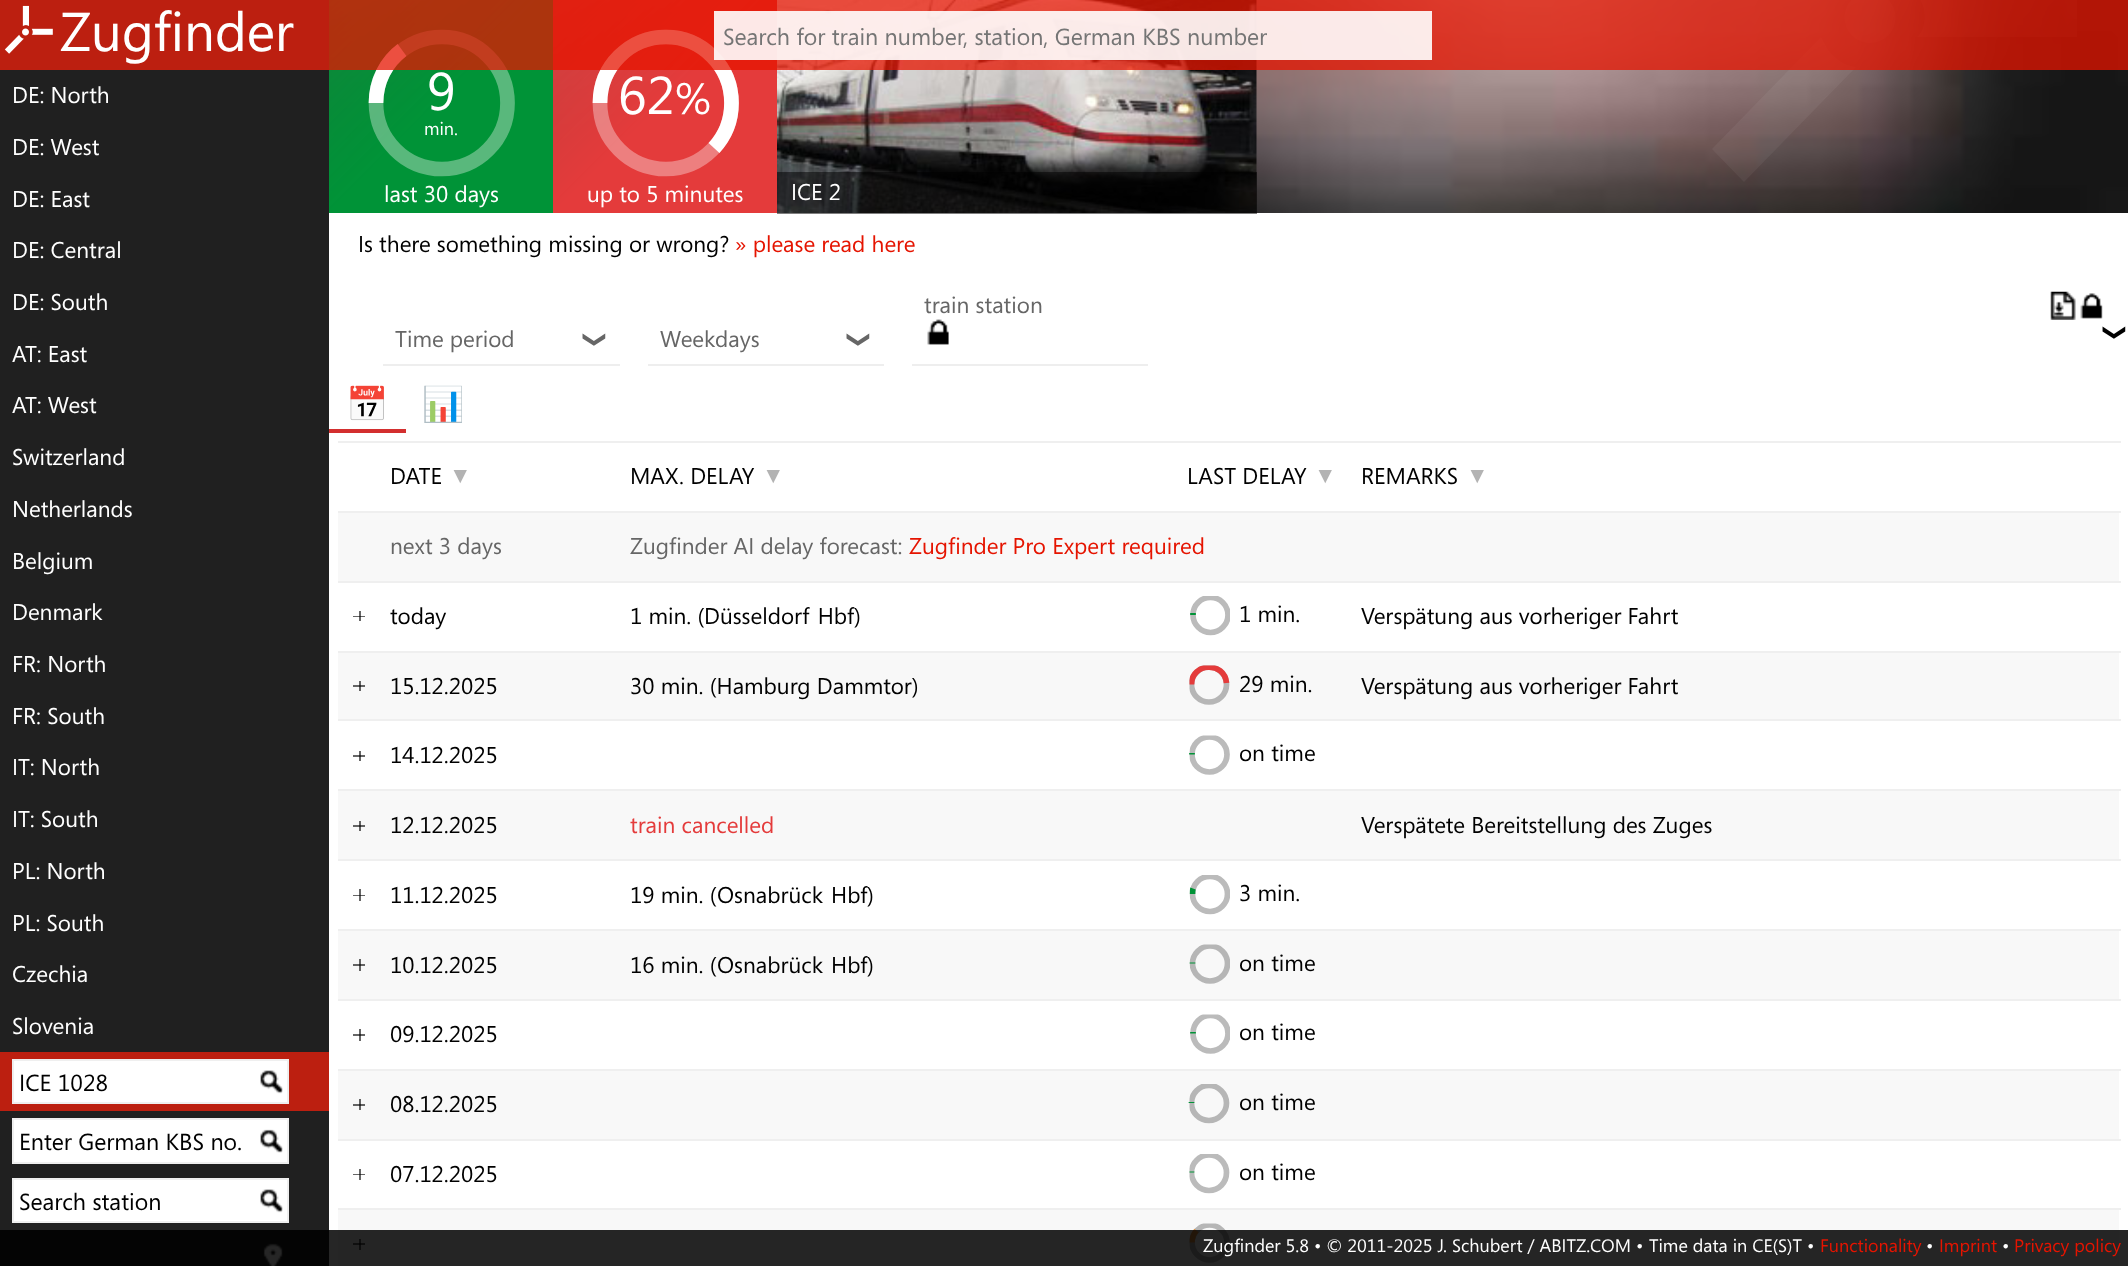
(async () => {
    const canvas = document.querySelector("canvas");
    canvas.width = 2128;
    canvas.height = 1266;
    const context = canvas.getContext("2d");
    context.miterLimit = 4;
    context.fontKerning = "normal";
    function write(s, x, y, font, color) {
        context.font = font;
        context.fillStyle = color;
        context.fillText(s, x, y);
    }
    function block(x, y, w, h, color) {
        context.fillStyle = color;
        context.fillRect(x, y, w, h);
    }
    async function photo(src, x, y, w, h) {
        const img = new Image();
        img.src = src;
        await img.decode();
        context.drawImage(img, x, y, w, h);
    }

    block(0, 0, 2128, 1266, "rgb(255, 255, 255)");
    block(353, 1174, 12, 1, "rgb(102, 102, 102)");
    block(353, 1034, 12, 2, "rgb(102, 102, 102)");
    block(353, 895, 12, 1, "rgb(102, 102, 102)");
    block(353, 755, 12, 2, "rgb(102, 102, 102)");
    block(353, 616, 12, 1, "rgb(102, 102, 102)");
    block(0, 0, 329, 70, "rgb(64, 64, 64)");
    await photo("media/5.png", 329, 0, 1799, 213);
    context.beginPath();
    context.moveTo(376, 103);
    context.bezierCurveTo(376, 66.5, 405.5, 37, 442, 37);
    context.bezierCurveTo(478, 37, 507.5, 66.5, 507.5, 103);
    context.bezierCurveTo(507.5, 139.5, 478, 169, 442, 169);
    context.bezierCurveTo(405.5, 169, 376, 139.5, 376, 103);
    context.closePath();
    context.strokeStyle = "rgba(255, 255, 255, 0.35)";
    context.lineWidth = 14.7;
    context.stroke();
    context.beginPath();
    context.moveTo(376, 103);
    context.bezierCurveTo(376, 81.5, 386, 62, 402, 50);
    context.strokeStyle = "rgb(255, 255, 255)";
    context.stroke();
    context.beginPath();
    context.moveTo(600, 103);
    context.bezierCurveTo(600, 66.5, 629.5, 37, 666, 37);
    context.bezierCurveTo(702, 37, 731.5, 66.5, 731.5, 103);
    context.bezierCurveTo(731.5, 139.5, 702, 169, 666, 169);
    context.bezierCurveTo(629.5, 169, 600, 139.5, 600, 103);
    context.closePath();
    context.strokeStyle = "rgba(255, 255, 255, 0.35)";
    context.stroke();
    context.beginPath();
    context.moveTo(600, 103);
    context.bezierCurveTo(600, 66.5, 629.5, 37, 666, 37);
    context.bezierCurveTo(702, 37, 731.5, 66.5, 731.5, 103);
    context.bezierCurveTo(731.5, 120, 725, 136, 714, 148);
    context.strokeStyle = "rgb(255, 255, 255)";
    context.stroke();
    await photo("media/6.png", 777, 0, 480, 213);
    context.fillStyle = "rgba(255, 255, 255, 0.05)";
    context.beginPath();
    context.moveTo(1821, 37);
    context.lineTo(1712, 149);
    context.lineTo(1744, 182);
    context.lineTo(1856, 67);
    context.bezierCurveTo(1845, 66, 1835, 59, 1828, 50);
    context.closePath();
    context.fill();
    context.beginPath();
    context.arc(1870, 17.5, 25.5, 0, Math.PI * 2);
    context.fill();
    context.beginPath();
    context.moveTo(2077, -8);
    context.lineTo(1917, -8);
    context.lineTo(1923, 6);
    context.bezierCurveTo(1926, 16, 1925, 30, 1917, 37);
    context.lineTo(2077, 37);
    context.closePath();
    context.fill();
    block(0, 0, 2128, 70, "rgba(229, 20, 0, 0.75)");
    await photo("media/1.png", 4, 5, 49, 49);
    write("Zugfinder", 60, 51, "54.5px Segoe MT", "rgb(255, 255, 255)");
    block(714, 11, 718, 49, "rgba(255, 255, 255, 0.9)");
    write("Search for train number, station, German KBS number", 723, 45, "23.3px Segoe MT", "rgb(117, 117, 117)");
    block(0, 70, 329, 982, "rgb(32, 32, 32)");
    write("DE: North", 12, 103, "22.7px Segoe MT", "rgb(255, 255, 255)");
    write("DE: West", 12, 155, "22.7px Segoe MT", "rgb(255, 255, 255)");
    write("DE: East", 12, 207, "22.7px Segoe MT", "rgb(255, 255, 255)");
    write("DE: Central", 12, 258, "22.7px Segoe MT", "rgb(255, 255, 255)");
    write("DE: South", 12, 310, "22.7px Segoe MT", "rgb(255, 255, 255)");
    write("AT: East", 12, 362, "22.7px Segoe MT", "rgb(255, 255, 255)");
    write("AT: West", 12, 413, "22.7px Segoe MT", "rgb(255, 255, 255)");
    write("Switzerland", 12, 465, "22.7px Segoe MT", "rgb(255, 255, 255)");
    write("Netherlands", 12, 517, "22.7px Segoe MT", "rgb(255, 255, 255)");
    write("Belgium", 12, 569, "22.7px Segoe MT", "rgb(255, 255, 255)");
    write("Denmark", 12, 620, "22.7px Segoe MT", "rgb(255, 255, 255)");
    write("FR: North", 12, 672, "22.7px Segoe MT", "rgb(255, 255, 255)");
    write("FR: South", 12, 724, "22.7px Segoe MT", "rgb(255, 255, 255)");
    write("IT: North", 12, 775, "22.7px Segoe MT", "rgb(255, 255, 255)");
    write("IT: South", 12, 827, "22.7px Segoe MT", "rgb(255, 255, 255)");
    write("PL: North", 12, 879, "22.7px Segoe MT", "rgb(255, 255, 255)");
    write("PL: South", 12, 931, "22.7px Segoe MT", "rgb(255, 255, 255)");
    write("Czechia", 12, 982, "22.7px Segoe MT", "rgb(255, 255, 255)");
    write("Slovenia", 12, 1034, "22.7px Segoe MT", "rgb(255, 255, 255)");
    block(0, 1052, 329, 59, "rgb(188, 31, 16)");
    context.fillStyle = "rgb(255, 255, 255)";
    context.beginPath();
    context.rect(13, 1060, 275, 43);
    context.fill();
    context.strokeStyle = "rgb(239, 239, 239)";
    context.lineWidth = 2;
    context.stroke();
    write("ICE 1028", 19, 1091, "23.3px Segoe MT", "rgb(0, 0, 0)");
    await photo("media/2.png", 260, 1070, 23, 24);
    block(0, 1111, 329, 119, "rgb(32, 32, 32)");
    context.fillStyle = "rgb(255, 255, 255)";
    context.beginPath();
    context.rect(13, 1119, 275, 44);
    context.fill();
    context.stroke();
    write("Enter German KBS no.", 19, 1150, "23.3px Segoe MT", "rgb(0, 0, 0)");
    await photo("media/3.png", 260, 1129, 23, 24);
    context.fillStyle = "rgb(255, 255, 255)";
    context.beginPath();
    context.rect(13, 1179, 275, 43);
    context.fill();
    context.stroke();
    write("Search station", 19, 1210, "23.3px Segoe MT", "rgb(0, 0, 0)");
    await photo("media/2.png", 260, 1189, 23, 24);
    block(0, 1230, 329, 36, "rgb(32, 32, 32)");
    await photo("media/4.png", 263, 1243, 20, 23);
    write("9", 427, 110, "53px Segoe MT", "rgb(255, 255, 255)");
    write("min.", 424, 135, "18px Segoe MT", "rgb(255, 255, 255)");
    write("last 30 days", 384, 202, "22.7px Segoe MT", "rgb(255, 255, 255)");
    write("62", 618, 114, "53px Segoe MT", "rgb(255, 255, 255)");
    write("%", 675, 114, "44px Segoe MT", "rgb(255, 255, 255)");
    write("up to 5 minutes", 587, 202, "22.7px Segoe MT", "rgb(255, 255, 255)");
    block(777, 172, 480, 42, "rgba(0, 0, 0, 0.5)");
    write("ICE 2", 791, 200, "22.7px Segoe MT", "rgb(255, 255, 255)");
    write("Is there something missing or wrong?", 358, 252, "22.7px Segoe MT", "rgb(0, 0, 0)");
    write("» please read here", 735, 252, "22.7px Segoe MT", "rgb(229, 20, 0)");
    await photo("media/7.png", 2050, 291, 26, 29);
    await photo("media/8.png", 2080, 293, 23, 26);
    block(912, 364, 236, 2, "rgb(238, 238, 238)");
    write("train station", 924, 313, "22.7px Segoe MT", "rgb(102, 102, 102)");
    await photo("media/9.png", 927, 319, 22, 26);
    context.font = "22.7px DejaVu Sans";
    context.fillStyle = "rgb(0, 0, 0)";
    context.save();
    context.translate(2108, 323);
    context.rotate(90 * Math.PI / 180);
    context.fillText("❯", 0, 0);
    context.restore();
    block(383, 364, 237, 2, "rgb(238, 238, 238)");
    write("Time period", 395, 347, "22.7px Segoe MT", "rgb(102, 102, 102)");
    context.font = "22.7px DejaVu Sans";
    context.save();
    context.translate(588, 330);
    context.rotate(90 * Math.PI / 180);
    context.fillText("❯", 0, 0);
    context.restore();
    block(648, 364, 236, 2, "rgb(238, 238, 238)");
    write("Weekdays", 660, 347, "22.7px Segoe MT", "rgb(102, 102, 102)");
    context.font = "22.7px DejaVu Sans";
    context.save();
    context.translate(852, 330);
    context.rotate(90 * Math.PI / 180);
    context.fillText("❯", 0, 0);
    context.restore();
    block(329, 429, 77, 4, "rgb(211, 47, 47)");
    write("📅", 346, 416, "34px Noto Color Emoji", "rgb(229, 20, 0)");
    write("📊", 422, 416, "34px Noto Color Emoji", "rgb(229, 20, 0)");
    write("DATE", 390, 484, "22.7px Segoe MT", "rgb(0, 0, 0)");
    context.letterSpacing = "4px";
    write("▼", 449, 483, "22.7px Liberation Sans", "rgb(179, 179, 179)");
    context.letterSpacing = "0px";
    write("MAX. DELAY", 630, 484, "22.7px Segoe MT", "rgb(0, 0, 0)");
    context.letterSpacing = "4px";
    write("▼", 762, 483, "22.7px Liberation Sans", "rgb(179, 179, 179)");
    context.letterSpacing = "0px";
    write("LAST DELAY", 1187, 484, "22.7px Segoe MT", "rgb(0, 0, 0)");
    context.letterSpacing = "4px";
    write("▼", 1314, 483, "22.7px Liberation Sans", "rgb(179, 179, 179)");
    block(338, 441, 1783, 2, "rgb(239, 239, 239)");
    block(338, 511, 1783, 2, "rgb(239, 239, 239)");
    context.letterSpacing = "0px";
    write("REMARKS", 1361, 484, "22.7px Segoe MT", "rgb(0, 0, 0)");
    context.letterSpacing = "4px";
    write("▼", 1466, 483, "22.7px Liberation Sans", "rgb(179, 179, 179)");
    block(338, 513, 1781, 68, "rgb(248, 248, 248)");
    context.letterSpacing = "0px";
    write("next 3 days", 390, 554, "22.7px Segoe MT", "rgb(102, 102, 102)");
    block(338, 581, 1783, 2, "rgb(239, 239, 239)");
    write("Zugfinder AI delay forecast:", 630, 554, "22.7px Segoe MT", "rgb(102, 102, 102)");
    write("Zugfinder Pro Expert required", 909, 554, "22.7px Segoe MT", "rgb(229, 20, 0)");
    block(359, 611, 2, 10, "rgb(102, 102, 102)");
    block(359, 616, 2, 1, "rgb(41, 41, 41)");
    write("today", 390, 624, "22.7px Segoe MT", "rgb(0, 0, 0)");
    write("1 min. (", 630, 624, "22.7px Segoe MT", "rgb(0, 0, 0)");
    context.wordSpacing = "2px";
    write("Düsseldorf Hbf", 704, 624, "22.7px Segoe MT", "rgb(0, 0, 0)");
    context.wordSpacing = "0px";
    write(")", 854, 624, "22.7px Segoe MT", "rgb(0, 0, 0)");
    context.save();
    context.beginPath();
    context.moveTo(1189.5, 637);
    context.lineTo(1189.5, 596);
    context.lineTo(1230, 596);
    context.lineTo(1230, 637);
    context.closePath();
    context.clip();
    context.beginPath();
    context.moveTo(1193, 615);
    context.bezierCurveTo(1193, 605, 1201, 597.5, 1210.5, 597.5);
    context.bezierCurveTo(1220, 597.5, 1228, 605, 1228, 615);
    context.bezierCurveTo(1228, 624.5, 1220, 632.5, 1210.5, 632.5);
    context.bezierCurveTo(1201, 632.5, 1193, 624.5, 1193, 615);
    context.closePath();
    context.strokeStyle = "rgb(187, 187, 187)";
    context.lineWidth = 5.7;
    context.stroke();
    context.restore();
    context.beginPath();
    context.moveTo(1193, 615);
    context.lineTo(1193, 613);
    context.strokeStyle = "rgb(0, 147, 55)";
    context.lineWidth = 5.7;
    context.stroke();
    write("1 min.", 1239, 622, "22.7px Segoe MT", "rgb(0, 0, 0)");
    block(338, 651, 1783, 2, "rgb(239, 239, 239)");
    write("Verspätung aus vorheriger Fahrt", 1361, 624, "22.7px Segoe MT", "rgb(0, 0, 0)");
    block(338, 653, 1781, 66, "rgb(248, 248, 248)");
    block(353, 685, 12, 2, "rgb(99, 99, 99)");
    block(359, 681, 2, 10, "rgb(99, 99, 99)");
    block(359, 685, 2, 2, "rgb(40, 40, 40)");
    write("15.12.2025", 390, 694, "22.7px Segoe MT", "rgb(0, 0, 0)");
    write("30 min. (Hamburg Dammtor)", 630, 694, "22.7px Segoe MT", "rgb(0, 0, 0)");
    context.save();
    context.beginPath();
    context.moveTo(1189.5, 706.5);
    context.lineTo(1189.5, 665.5);
    context.lineTo(1230, 665.5);
    context.lineTo(1230, 706.5);
    context.closePath();
    context.clip();
    context.beginPath();
    context.moveTo(1191.5, 684.5);
    context.bezierCurveTo(1191.5, 675, 1199.5, 667, 1209, 667);
    context.bezierCurveTo(1218.5, 667, 1226.5, 675, 1226.5, 684.5);
    context.bezierCurveTo(1226.5, 694.5, 1218.5, 702, 1209, 702);
    context.bezierCurveTo(1199.5, 702, 1191.5, 694.5, 1191.5, 684.5);
    context.closePath();
    context.strokeStyle = "rgb(182, 182, 182)";
    context.stroke();
    context.beginPath();
    context.moveTo(1191.5, 684.5);
    context.bezierCurveTo(1191.5, 662.5, 1224.5, 661, 1226.5, 683);
    context.strokeStyle = "rgb(228, 59, 59)";
    context.stroke();
    context.restore();
    write("29 min.", 1239, 692, "22.7px Segoe MT", "rgb(0, 0, 0)");
    block(338, 719, 1783, 2, "rgb(239, 239, 239)");
    write("Verspätung aus vorheriger Fahrt", 1361, 694, "22.7px Segoe MT", "rgb(0, 0, 0)");
    block(359, 751, 2, 10, "rgb(102, 102, 102)");
    block(359, 755, 2, 2, "rgb(41, 41, 41)");
    write("14.12.2025", 390, 763, "22.7px Segoe MT", "rgb(0, 0, 0)");
    context.save();
    context.beginPath();
    context.moveTo(1189.5, 776);
    context.lineTo(1189.5, 735.5);
    context.lineTo(1230, 735.5);
    context.lineTo(1230, 776);
    context.closePath();
    context.clip();
    context.beginPath();
    context.moveTo(1192, 754.5);
    context.bezierCurveTo(1192, 744.5, 1199.5, 737, 1209.5, 737);
    context.bezierCurveTo(1219, 737, 1227, 744.5, 1227, 754.5);
    context.bezierCurveTo(1227, 764, 1219, 772, 1209.5, 772);
    context.bezierCurveTo(1199.5, 772, 1192, 764, 1192, 754.5);
    context.closePath();
    context.strokeStyle = "rgb(187, 187, 187)";
    context.stroke();
    context.restore();
    context.beginPath();
    context.moveTo(1192, 754.5);
    context.lineTo(1192, 753);
    context.stroke();
    write("on time", 1239, 761, "22.7px Segoe MT", "rgb(0, 0, 0)");
    block(338, 789, 1783, 2, "rgb(239, 239, 239)");
    block(338, 791, 1781, 68, "rgb(248, 248, 248)");
    block(353, 825, 12, 2, "rgb(99, 99, 99)");
    block(359, 821, 2, 10, "rgb(99, 99, 99)");
    block(359, 825, 2, 2, "rgb(40, 40, 40)");
    write("12.12.2025", 390, 833, "22.7px Segoe MT", "rgb(0, 0, 0)");
    write("train cancelled", 630, 833, "22.7px Segoe MT", "rgb(228, 59, 59)");
    block(338, 859, 1783, 2, "rgb(239, 239, 239)");
    write("Verspätete Bereitstellung des Zuges", 1361, 833, "22.7px Segoe MT", "rgb(0, 0, 0)");
    block(359, 889, 2, 12, "rgb(102, 102, 102)");
    block(359, 895, 2, 1, "rgb(41, 41, 41)");
    write("11.12.2025", 390, 903, "22.7px Segoe MT", "rgb(0, 0, 0)");
    write("19 min. (", 630, 903, "22.7px Segoe MT", "rgb(0, 0, 0)");
    context.wordSpacing = "2px";
    write("Osnabrück Hbf", 717, 903, "22.7px Segoe MT", "rgb(0, 0, 0)");
    context.wordSpacing = "0px";
    write(")", 867, 903, "22.7px Segoe MT", "rgb(0, 0, 0)");
    context.save();
    context.beginPath();
    context.moveTo(1189.5, 915.5);
    context.lineTo(1189.5, 875);
    context.lineTo(1230, 875);
    context.lineTo(1230, 915.5);
    context.closePath();
    context.clip();
    context.beginPath();
    context.moveTo(1192.5, 894);
    context.bezierCurveTo(1192.5, 884, 1200, 876.5, 1210, 876.5);
    context.bezierCurveTo(1219.5, 876.5, 1227.5, 884, 1227.5, 894);
    context.bezierCurveTo(1227.5, 903.5, 1219.5, 911.5, 1210, 911.5);
    context.bezierCurveTo(1200, 911.5, 1192.5, 903.5, 1192.5, 894);
    context.closePath();
    context.strokeStyle = "rgb(187, 187, 187)";
    context.stroke();
    context.beginPath();
    context.moveTo(1192.5, 894);
    context.bezierCurveTo(1192.5, 892, 1192.5, 890, 1193, 888.5);
    context.strokeStyle = "rgb(0, 147, 55)";
    context.stroke();
    context.restore();
    write("3 min.", 1239, 901, "22.7px Segoe MT", "rgb(0, 0, 0)");
    block(338, 929, 1783, 2, "rgb(239, 239, 239)");
    block(338, 931, 1781, 68, "rgb(248, 248, 248)");
    block(353, 964, 12, 2, "rgb(99, 99, 99)");
    block(359, 959, 2, 12, "rgb(99, 99, 99)");
    block(359, 964, 2, 2, "rgb(40, 40, 40)");
    write("10.12.2025", 390, 973, "22.7px Segoe MT", "rgb(0, 0, 0)");
    write("16 min. (", 630, 973, "22.7px Segoe MT", "rgb(0, 0, 0)");
    context.wordSpacing = "2px";
    write("Osnabrück Hbf", 717, 973, "22.7px Segoe MT", "rgb(0, 0, 0)");
    context.wordSpacing = "0px";
    write(")", 867, 973, "22.7px Segoe MT", "rgb(0, 0, 0)");
    context.save();
    context.beginPath();
    context.moveTo(1189.5, 985.5);
    context.lineTo(1189.5, 944.5);
    context.lineTo(1230, 944.5);
    context.lineTo(1230, 985.5);
    context.closePath();
    context.clip();
    context.beginPath();
    context.moveTo(1192.5, 963.5);
    context.bezierCurveTo(1192.5, 954, 1200.5, 946, 1210, 946);
    context.bezierCurveTo(1220, 946, 1227.5, 954, 1227.5, 963.5);
    context.bezierCurveTo(1227.5, 973, 1220, 981, 1210, 981);
    context.bezierCurveTo(1200.5, 981, 1192.5, 973, 1192.5, 963.5);
    context.closePath();
    context.strokeStyle = "rgb(182, 182, 182)";
    context.stroke();
    context.restore();
    context.beginPath();
    context.moveTo(1192.5, 963.5);
    context.lineTo(1192.5, 962.5);
    context.stroke();
    write("on time", 1239, 971, "22.7px Segoe MT", "rgb(0, 0, 0)");
    block(338, 999, 1783, 2, "rgb(239, 239, 239)");
    block(359, 1029, 2, 12, "rgb(102, 102, 102)");
    block(359, 1034, 2, 2, "rgb(41, 41, 41)");
    write("09.12.2025", 390, 1042, "22.7px Segoe MT", "rgb(0, 0, 0)");
    context.save();
    context.beginPath();
    context.moveTo(1189.5, 1055);
    context.lineTo(1189.5, 1014.5);
    context.lineTo(1230, 1014.5);
    context.lineTo(1230, 1055);
    context.closePath();
    context.clip();
    context.beginPath();
    context.moveTo(1193, 1033.5);
    context.bezierCurveTo(1193, 1023.5, 1200.5, 1015.5, 1210.5, 1015.5);
    context.bezierCurveTo(1220, 1015.5, 1228, 1023.5, 1228, 1033.5);
    context.bezierCurveTo(1228, 1043, 1220, 1051, 1210.5, 1051);
    context.bezierCurveTo(1200.5, 1051, 1193, 1043, 1193, 1033.5);
    context.closePath();
    context.strokeStyle = "rgb(187, 187, 187)";
    context.stroke();
    context.restore();
    context.beginPath();
    context.moveTo(1193, 1033.5);
    context.lineTo(1193, 1032);
    context.stroke();
    write("on time", 1239, 1040, "22.7px Segoe MT", "rgb(0, 0, 0)");
    block(338, 1069, 1783, 2, "rgb(239, 239, 239)");
    block(338, 1071, 1781, 68, "rgb(248, 248, 248)");
    block(353, 1104, 12, 2, "rgb(99, 99, 99)");
    block(359, 1099, 2, 11, "rgb(99, 99, 99)");
    block(359, 1104, 2, 2, "rgb(40, 40, 40)");
    write("08.12.2025", 390, 1112, "22.7px Segoe MT", "rgb(0, 0, 0)");
    context.save();
    context.beginPath();
    context.moveTo(1189.5, 1125);
    context.lineTo(1189.5, 1084);
    context.lineTo(1230, 1084);
    context.lineTo(1230, 1125);
    context.closePath();
    context.clip();
    context.beginPath();
    context.moveTo(1191.5, 1103);
    context.bezierCurveTo(1191.5, 1093.5, 1199, 1085.5, 1209, 1085.5);
    context.bezierCurveTo(1218.5, 1085.5, 1226.5, 1093.5, 1226.5, 1103);
    context.bezierCurveTo(1226.5, 1112.5, 1218.5, 1120.5, 1209, 1120.5);
    context.bezierCurveTo(1199, 1120.5, 1191.5, 1112.5, 1191.5, 1103);
    context.closePath();
    context.strokeStyle = "rgb(182, 182, 182)";
    context.stroke();
    context.restore();
    context.beginPath();
    context.moveTo(1191.5, 1103);
    context.lineTo(1191.5, 1102);
    context.stroke();
    write("on time", 1239, 1110, "22.7px Segoe MT", "rgb(0, 0, 0)");
    block(338, 1139, 1783, 2, "rgb(239, 239, 239)");
    block(359, 1169, 2, 11, "rgb(102, 102, 102)");
    block(359, 1174, 2, 1, "rgb(41, 41, 41)");
    write("07.12.2025", 390, 1182, "22.7px Segoe MT", "rgb(0, 0, 0)");
    context.save();
    context.beginPath();
    context.moveTo(1189.5, 1194.5);
    context.lineTo(1189.5, 1154);
    context.lineTo(1230, 1154);
    context.lineTo(1230, 1194.5);
    context.closePath();
    context.clip();
    context.beginPath();
    context.moveTo(1191.5, 1172.5);
    context.bezierCurveTo(1191.5, 1163, 1199.5, 1155, 1209, 1155);
    context.bezierCurveTo(1219, 1155, 1226.5, 1163, 1226.5, 1172.5);
    context.bezierCurveTo(1226.5, 1182.5, 1219, 1190.5, 1209, 1190.5);
    context.bezierCurveTo(1199.5, 1190.5, 1191.5, 1182.5, 1191.5, 1172.5);
    context.closePath();
    context.strokeStyle = "rgb(187, 187, 187)";
    context.stroke();
    context.beginPath();
    context.moveTo(1191.5, 1172.5);
    context.lineTo(1191.5, 1171.5);
    context.strokeStyle = "rgb(0, 147, 55)";
    context.stroke();
    context.restore();
    write("on time", 1239, 1180, "22.7px Segoe MT", "rgb(0, 0, 0)");
    block(338, 1208, 1783, 2, "rgb(239, 239, 239)");
    block(338, 1210, 1781, 56, "rgb(248, 248, 248)");
    block(353, 1243, 12, 2, "rgb(99, 99, 99)");
    block(359, 1239, 2, 11, "rgb(99, 99, 99)");
    block(359, 1243, 2, 2, "rgb(40, 40, 40)");
    context.save();
    context.beginPath();
    context.moveTo(1189.5, 1264.5);
    context.lineTo(1189.5, 1223.5);
    context.lineTo(1230, 1223.5);
    context.lineTo(1230, 1264.5);
    context.closePath();
    context.clip();
    context.beginPath();
    context.moveTo(1192, 1242.5);
    context.bezierCurveTo(1192, 1233, 1200, 1225, 1209.5, 1225);
    context.bezierCurveTo(1219, 1225, 1227, 1233, 1227, 1242.5);
    context.bezierCurveTo(1227, 1252, 1219, 1260, 1209.5, 1260);
    context.bezierCurveTo(1200, 1260, 1192, 1252, 1192, 1242.5);
    context.closePath();
    context.strokeStyle = "rgb(182, 182, 182)";
    context.stroke();
    context.beginPath();
    context.moveTo(1192, 1242.5);
    context.bezierCurveTo(1192, 1238, 1193.5, 1234, 1196.5, 1230.5);
    context.strokeStyle = "rgb(228, 144, 59)";
    context.stroke();
    context.restore();
    block(0, 1230, 2128, 36, "rgba(0, 0, 0, 0.85)");
    write("Zugfinder 5.8 • © 2011-2025 J. Schubert / ABITZ.COM •", 1203, 1252, "18.1px Segoe MT", "rgb(255, 255, 255)");
    write("Time data in CE(S)T •", 1649, 1252, "18.1px Segoe MT", "rgb(255, 255, 255)");
    write("Functionality", 1820, 1252, "18.1px Segoe MT", "rgb(229, 20, 0)");
    write("•", 1926, 1252, "18.1px Segoe MT", "rgb(255, 255, 255)");
    write("Imprint", 1939, 1252, "18.1px Segoe MT", "rgb(229, 20, 0)");
    write("•", 2002, 1252, "18.1px Segoe MT", "rgb(255, 255, 255)");
    write("Privacy policy", 2014, 1252, "18.1px Segoe MT", "rgb(229, 20, 0)");
})();
